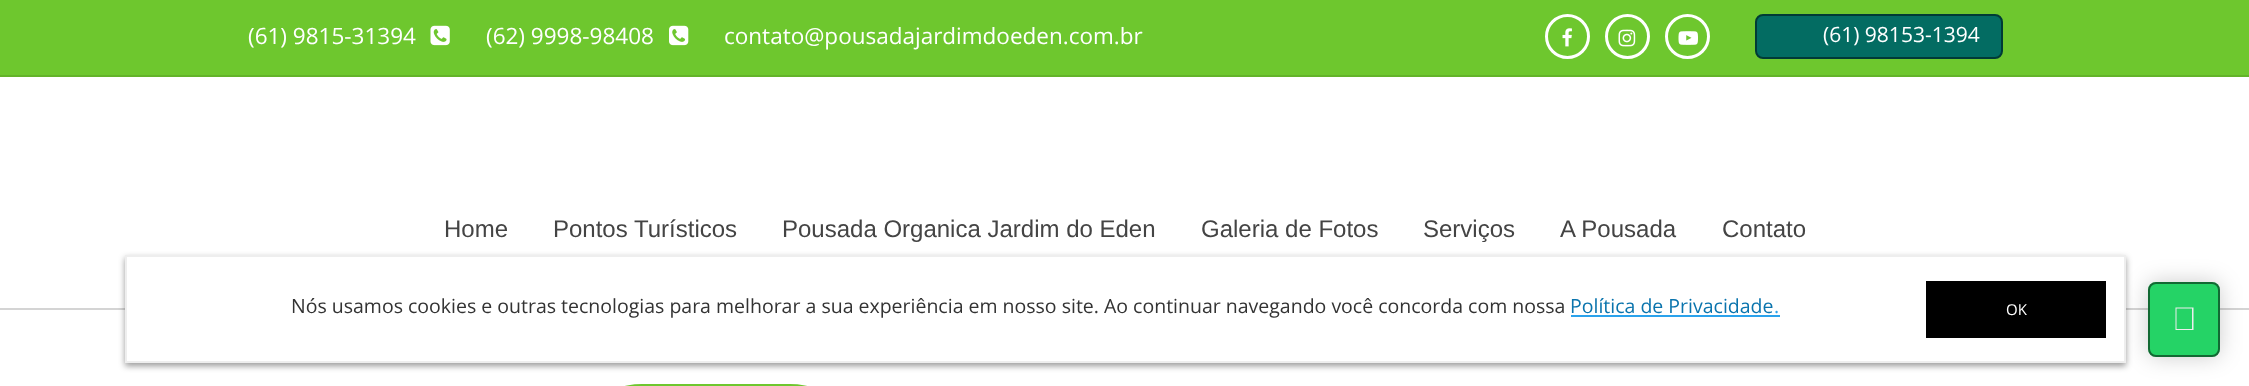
(async () => {
    const canvas = document.querySelector("canvas");
    canvas.width = 2249;
    canvas.height = 386;
    const context = canvas.getContext("2d");
    context.miterLimit = 4;
    context.fontKerning = "normal";
    function write(s, x, y, font, color) {
        context.font = font;
        context.fillStyle = color;
        context.fillText(s, x, y);
    }
    function block(x, y, w, h, color) {
        context.fillStyle = color;
        context.fillRect(x, y, w, h);
    }
    function card(x, y, w, h, r, color) {
        context.fillStyle = color;
        context.beginPath();
        context.roundRect(x, y, w, h, r);
        context.fill();
    }
    async function photo(src, x, y, w, h) {
        const img = new Image();
        img.src = src;
        await img.decode();
        context.drawImage(img, x, y, w, h);
    }

    block(0, 0, 2249, 386, "rgb(255, 255, 255)");
    block(0, 308, 2249, 2, "rgb(212, 212, 212)");
    block(0, 0, 2249, 75, "rgb(110, 199, 46)");
    block(0, 75, 2249, 2, "rgb(99, 179, 41)");
    write("(61) 9815-31394", 248, 44, "22.5px Open Sans", "rgb(255, 255, 255)");
    await photo("media/1.png", 430, 25, 20, 21);
    write("(62) 9998-98408", 486, 44, "22.5px Open Sans", "rgb(255, 255, 255)");
    await photo("media/2.png", 669, 25, 20, 21);
    write("contato@pousadajardimdoeden.com.br", 724, 44, "22.5px Open Sans", "rgb(255, 255, 255)");
    context.beginPath();
    context.arc(1567.5, 36.5, 21, 0, Math.PI * 2);
    context.strokeStyle = "rgb(255, 255, 255)";
    context.lineWidth = 3;
    context.stroke();
    await photo("media/3.png", 1562, 28, 10, 19);
    context.beginPath();
    context.arc(1627.5, 36.5, 21, 0, Math.PI * 2);
    context.stroke();
    await photo("media/4.png", 1618, 29, 18, 18);
    context.beginPath();
    context.arc(1687.5, 36.5, 21, 0, Math.PI * 2);
    context.stroke();
    await photo("media/5.png", 1678, 31, 20, 14);
    context.fillStyle = "rgb(3, 108, 98)";
    context.beginPath();
    context.roundRect(1756, 15, 246, 43, 7);
    context.fill();
    context.strokeStyle = "rgb(0, 59, 54)";
    context.lineWidth = 2;
    context.stroke();
    write("(61) 98153-1394", 1823, 42, "21px Open Sans", "rgb(255, 255, 255)");
    write("Home", 444, 237, "24px Liberation Sans", "rgb(68, 68, 68)");
    write("Pontos Turísticos", 553, 237, "24px Liberation Sans", "rgb(68, 68, 68)");
    write("Pousada Organica Jardim do Eden", 782, 237, "24px Liberation Sans", "rgb(68, 68, 68)");
    write("Galeria de Fotos", 1201, 237, "24px Liberation Sans", "rgb(68, 68, 68)");
    write("Serviços", 1423, 237, "24px Liberation Sans", "rgb(68, 68, 68)");
    write("A Pousada", 1560, 237, "24px Liberation Sans", "rgb(68, 68, 68)");
    write("Contato", 1722, 237, "24px Liberation Sans", "rgb(68, 68, 68)");
    context.fillStyle = "rgba(0, 0, 0, 0.2)";
    context.filter = "blur(11px)";
    context.beginPath();
    context.roundRect(2148, 282, 72, 75, 8);
    context.fill();
    context.filter = "none";
    card(2148, 282, 72, 75, 8, "rgb(37, 211, 102)");
    context.beginPath();
    context.roundRect(2149, 283, 70, 73, 7);
    context.strokeStyle = "rgba(0, 0, 0, 0.5)";
    context.stroke();
    context.fillStyle = "rgb(237, 237, 237)";
    context.beginPath();
    context.moveTo(2175.5, 307.5);
    context.lineTo(2193.5, 307.5);
    context.lineTo(2193.5, 330);
    context.lineTo(2175.5, 330);
    context.closePath();
    context.moveTo(2176.5, 308.5);
    context.lineTo(2176.5, 329);
    context.lineTo(2192, 329);
    context.lineTo(2192, 308.5);
    context.closePath();
    context.fill();
    card(566, 384, 300, 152, 150, "rgb(110, 199, 46)");
    context.fillStyle = "rgba(0, 0, 0, 0.4)";
    context.filter = "blur(3px)";
    context.beginPath();
    context.rect(125, 258, 2001, 108);
    context.fill();
    context.filter = "none";
    context.fillStyle = "rgb(255, 255, 255)";
    context.beginPath();
    context.rect(126, 256, 1999, 106);
    context.fill();
    context.strokeStyle = "rgb(238, 238, 238)";
    context.stroke();
    write("Nós usamos cookies e outras tecnologias para melhorar a sua experiência em nosso site. Ao continuar navegando você concorda com nossa", 291, 313, "19.5px Open Sans", "rgb(51, 51, 51)");
    write("Política de Privacidade", 1570, 313, "19.5px Open Sans", "rgb(10, 116, 173)");
    write(".", 1774, 313, "19.5px Open Sans", "rgb(42, 162, 236)");
    block(1571, 315, 209, 2, "rgb(42, 162, 236)");
    block(1926, 281, 180, 57, "rgb(0, 0, 0)");
    write("OK", 2006, 315, "15px Open Sans", "rgb(255, 255, 255)");
})();
